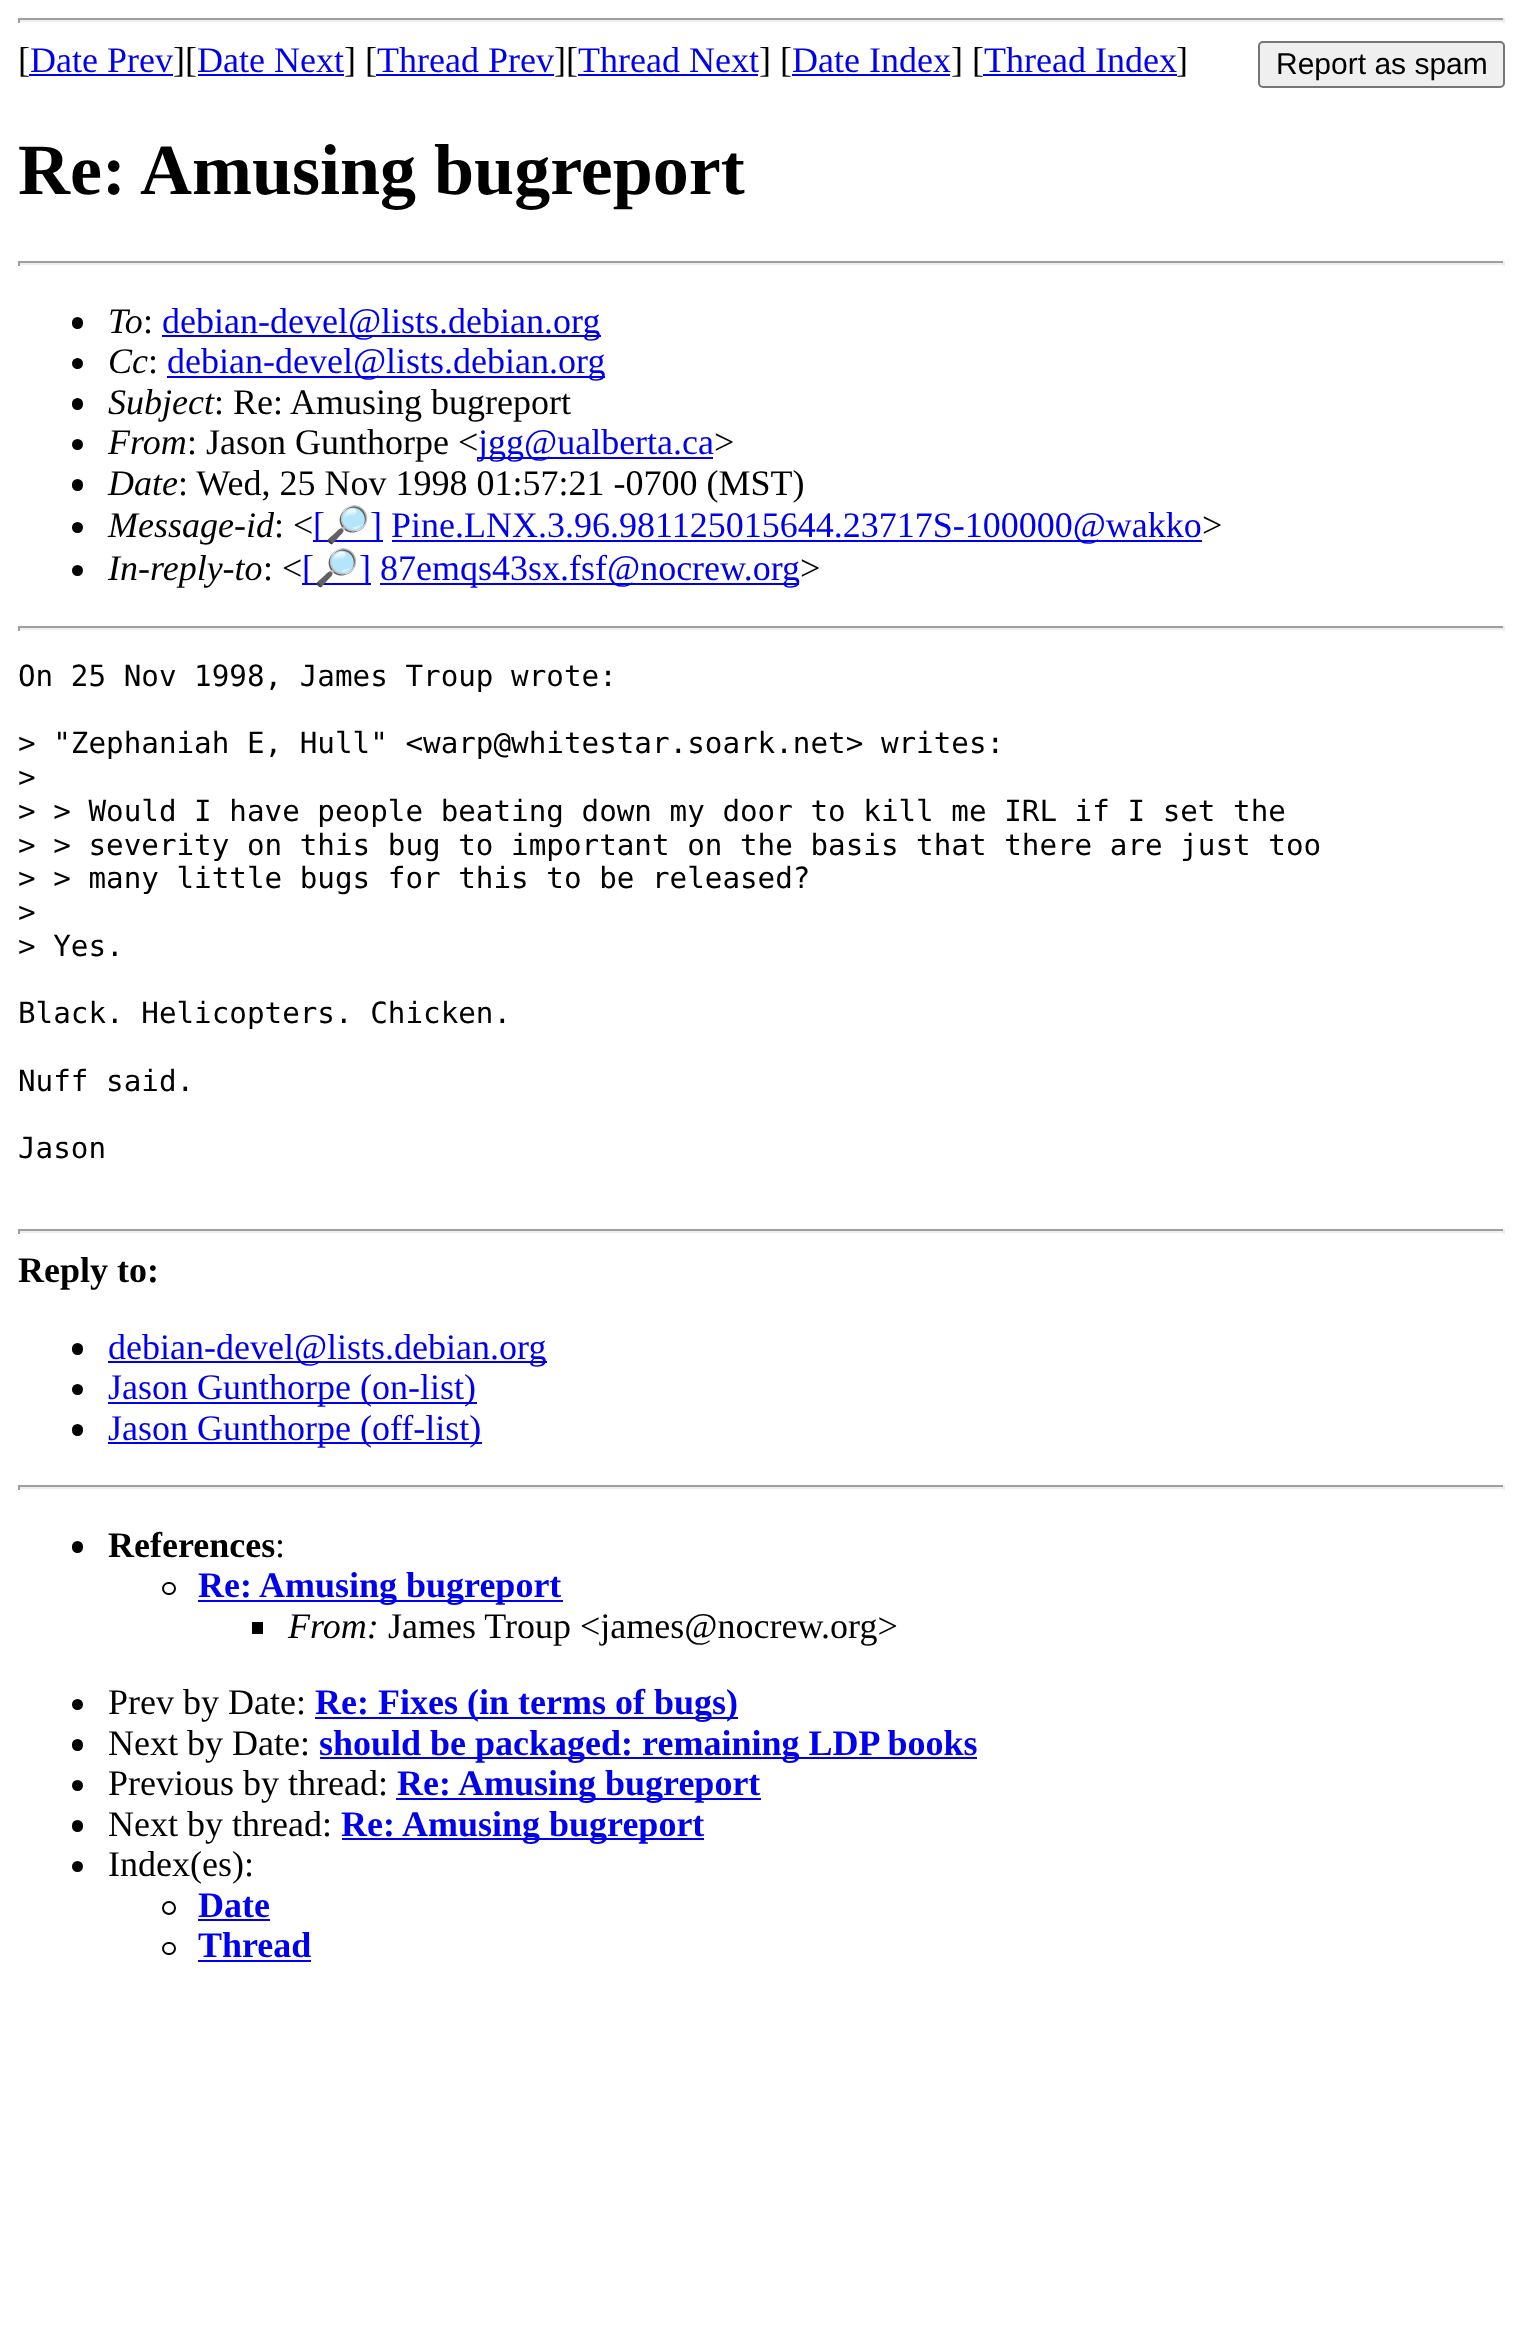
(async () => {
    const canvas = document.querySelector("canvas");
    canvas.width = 1523;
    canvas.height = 2337;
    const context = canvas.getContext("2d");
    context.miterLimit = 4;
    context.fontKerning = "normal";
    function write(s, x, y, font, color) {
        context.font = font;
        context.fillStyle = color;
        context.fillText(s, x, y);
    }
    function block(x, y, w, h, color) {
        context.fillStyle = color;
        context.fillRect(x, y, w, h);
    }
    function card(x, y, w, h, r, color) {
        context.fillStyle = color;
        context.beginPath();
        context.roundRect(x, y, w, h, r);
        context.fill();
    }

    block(0, 0, 1523, 2337, "rgb(255, 255, 255)");
    block(18, 18, 1487, 2, "rgb(159, 159, 159)");
    block(1503, 18, 2, 5, "rgb(238, 238, 238)");
    block(18, 20, 1487, 2, "rgb(238, 238, 238)");
    block(18, 18, 2, 5, "rgb(159, 159, 159)");
    write("[", 18, 72, "36px Liberation Serif", "rgb(0, 0, 0)");
    write("Date Prev", 30, 72, "36px Liberation Serif", "rgb(0, 0, 238)");
    block(29, 74, 144, 2, "rgb(0, 0, 238)");
    write("][", 173, 72, "36px Liberation Serif", "rgb(0, 0, 0)");
    write("Date Next", 197, 72, "36px Liberation Serif", "rgb(0, 0, 238)");
    block(198, 74, 146, 2, "rgb(0, 0, 238)");
    write("] [", 344, 72, "36px Liberation Serif", "rgb(0, 0, 0)");
    write("Thread Prev", 377, 72, "36px Liberation Serif", "rgb(0, 0, 238)");
    block(376, 74, 178, 2, "rgb(0, 0, 238)");
    write("][", 554, 72, "36px Liberation Serif", "rgb(0, 0, 0)");
    write("Thread Next", 578, 72, "36px Liberation Serif", "rgb(0, 0, 238)");
    block(578, 74, 180, 2, "rgb(0, 0, 238)");
    write("] [", 759, 72, "36px Liberation Serif", "rgb(0, 0, 0)");
    write("Date Index", 792, 72, "36px Liberation Serif", "rgb(0, 0, 238)");
    block(792, 74, 158, 2, "rgb(0, 0, 238)");
    write("] [", 951, 72, "36px Liberation Serif", "rgb(0, 0, 0)");
    write("Thread Index", 984, 72, "36px Liberation Serif", "rgb(0, 0, 238)");
    block(983, 74, 194, 2, "rgb(0, 0, 238)");
    write("]", 1176, 72, "36px Liberation Serif", "rgb(0, 0, 0)");
    context.fillStyle = "rgb(239, 239, 239)";
    context.beginPath();
    context.roundRect(1259, 42, 245, 45, 4);
    context.fill();
    context.strokeStyle = "rgb(118, 118, 118)";
    context.lineWidth = 2;
    context.stroke();
    write("Report as spam", 1276, 74, "30px Liberation Sans", "rgb(0, 0, 0)");
    write("Re: Amusing bugreport", 18, 194, "bold 72px Liberation Serif", "rgb(0, 0, 0)");
    block(18, 261, 1487, 2, "rgb(159, 159, 159)");
    block(1503, 261, 2, 5, "rgb(238, 238, 238)");
    block(18, 263, 1487, 2, "rgb(238, 238, 238)");
    block(18, 261, 2, 5, "rgb(159, 159, 159)");
    card(72, 317, 11, 12, 5.5, "rgb(0, 0, 0)");
    write("To", 108, 333, "italic 36px Liberation Serif", "rgb(0, 0, 0)");
    write(":", 143, 333, "36px Liberation Serif", "rgb(0, 0, 0)");
    block(162, 335, 439, 2, "rgb(0, 0, 238)");
    write("debian-devel@lists.debian.org", 162, 333, "36px Liberation Serif", "rgb(0, 0, 238)");
    context.fillStyle = "rgb(0, 0, 0)";
    context.beginPath();
    context.arc(77.5, 363.5, 5.5, 0, Math.PI * 2);
    context.fill();
    write("Cc", 108, 373, "italic 36px Liberation Serif", "rgb(0, 0, 0)");
    write(":", 148, 373, "36px Liberation Serif", "rgb(0, 0, 0)");
    block(167, 376, 438, 2, "rgb(0, 0, 238)");
    write("debian-devel@lists.debian.org", 167, 373, "36px Liberation Serif", "rgb(0, 0, 238)");
    card(72, 398, 11, 12, 5.5, "rgb(0, 0, 0)");
    write("Subject", 108, 414, "italic 36px Liberation Serif", "rgb(0, 0, 0)");
    write(": Re: Amusing bugreport", 214, 414, "36px Liberation Serif", "rgb(0, 0, 0)");
    context.beginPath();
    context.arc(77.5, 444.5, 5.5, 0, Math.PI * 2);
    context.fill();
    write("From", 108, 454, "italic 36px Liberation Serif", "rgb(0, 0, 0)");
    write(": Jason Gunthorpe <", 187, 454, "36px Liberation Serif", "rgb(0, 0, 0)");
    block(477, 457, 236, 2, "rgb(0, 0, 238)");
    write("jgg@ualberta.ca", 478, 454, "36px Liberation Serif", "rgb(0, 0, 238)");
    write(">", 714, 454, "36px Liberation Serif", "rgb(0, 0, 0)");
    card(72, 479, 11, 12, 5.5, "rgb(0, 0, 0)");
    write("Date", 108, 495, "italic 36px Liberation Serif", "rgb(0, 0, 0)");
    write(": Wed, 25 Nov 1998 01:57:21 -0700 (MST)", 178, 495, "36px Liberation Serif", "rgb(0, 0, 0)");
    context.beginPath();
    context.arc(77.5, 527.5, 5.5, 0, Math.PI * 2);
    context.fill();
    write("Message-id", 108, 537, "italic 36px Liberation Serif", "rgb(0, 0, 0)");
    write(": <", 274, 537, "36px Liberation Serif", "rgb(0, 0, 0)");
    block(313, 540, 70, 2, "rgb(0, 0, 238)");
    write("[", 313, 537, "36px Liberation Serif", "rgb(0, 0, 238)");
    write("🔎", 325, 537, "36px Noto Color Emoji", "rgb(0, 0, 238)");
    write("]", 370, 537, "36px Liberation Serif", "rgb(0, 0, 238)");
    block(392, 540, 810, 2, "rgb(0, 0, 238)");
    write("Pine.LNX.3.96.981125015644.23717S-100000@wakko", 391, 537, "36px Liberation Serif", "rgb(0, 0, 238)");
    write(">", 1202, 537, "36px Liberation Serif", "rgb(0, 0, 0)");
    context.beginPath();
    context.arc(77.5, 570.5, 5.5, 0, Math.PI * 2);
    context.fill();
    write("In-reply-to", 108, 580, "italic 36px Liberation Serif", "rgb(0, 0, 0)");
    write(": <", 263, 580, "36px Liberation Serif", "rgb(0, 0, 0)");
    block(302, 583, 69, 2, "rgb(0, 0, 238)");
    write("[", 302, 580, "36px Liberation Serif", "rgb(0, 0, 238)");
    write("🔎", 314, 580, "36px Noto Color Emoji", "rgb(0, 0, 238)");
    write("]", 359, 580, "36px Liberation Serif", "rgb(0, 0, 238)");
    block(380, 583, 419, 2, "rgb(0, 0, 238)");
    write("87emqs43sx.fsf@nocrew.org", 380, 580, "36px Liberation Serif", "rgb(0, 0, 238)");
    write(">", 800, 580, "36px Liberation Serif", "rgb(0, 0, 0)");
    block(18, 626, 1487, 2, "rgb(159, 159, 159)");
    block(1503, 626, 2, 5, "rgb(238, 238, 238)");
    block(18, 628, 1487, 2, "rgb(238, 238, 238)");
    block(18, 626, 2, 5, "rgb(159, 159, 159)");
    write("On 25 Nov 1998, James Troup wrote:", 18, 686, "29.25px DejaVu Sans Mono", "rgb(0, 0, 0)");
    write("> \"Zephaniah E, Hull\" <warp@whitestar.soark.net> writes:", 18, 753, "29.25px DejaVu Sans Mono", "rgb(0, 0, 0)");
    write(">", 18, 787, "29.25px DejaVu Sans Mono", "rgb(0, 0, 0)");
    write("> > Would I have people beating down my door to kill me IRL if I set the", 18, 821, "29.25px DejaVu Sans Mono", "rgb(0, 0, 0)");
    write("> > severity on this bug to important on the basis that there are just too", 18, 855, "29.25px DejaVu Sans Mono", "rgb(0, 0, 0)");
    write("> > many little bugs for this to be released?", 18, 888, "29.25px DejaVu Sans Mono", "rgb(0, 0, 0)");
    write(">", 18, 922, "29.25px DejaVu Sans Mono", "rgb(0, 0, 0)");
    write("> Yes.", 18, 956, "29.25px DejaVu Sans Mono", "rgb(0, 0, 0)");
    write("Black. Helicopters. Chicken.", 18, 1023, "29.25px DejaVu Sans Mono", "rgb(0, 0, 0)");
    write("Nuff said.", 18, 1091, "29.25px DejaVu Sans Mono", "rgb(0, 0, 0)");
    write("Jason", 18, 1158, "29.25px DejaVu Sans Mono", "rgb(0, 0, 0)");
    block(18, 1229, 1487, 2, "rgb(159, 159, 159)");
    block(1503, 1229, 2, 5, "rgb(238, 238, 238)");
    block(18, 1231, 1487, 2, "rgb(238, 238, 238)");
    block(18, 1229, 2, 5, "rgb(159, 159, 159)");
    write("Reply to:", 18, 1282, "bold 36px Liberation Serif", "rgb(0, 0, 0)");
    card(72, 1343, 11, 12, 5.5, "rgb(0, 0, 0)");
    block(108, 1361, 439, 2, "rgb(0, 0, 238)");
    write("debian-devel@lists.debian.org", 108, 1359, "36px Liberation Serif", "rgb(0, 0, 238)");
    context.fillStyle = "rgb(0, 0, 0)";
    context.beginPath();
    context.arc(77.5, 1389.5, 5.5, 0, Math.PI * 2);
    context.fill();
    block(108, 1402, 369, 2, "rgb(0, 0, 238)");
    write("Jason Gunthorpe (on-list)", 108, 1399, "36px Liberation Serif", "rgb(0, 0, 238)");
    card(72, 1424, 11, 12, 5.5, "rgb(0, 0, 0)");
    block(108, 1442, 374, 2, "rgb(0, 0, 238)");
    write("Jason Gunthorpe (off-list)", 108, 1440, "36px Liberation Serif", "rgb(0, 0, 238)");
    block(18, 1485, 1487, 2, "rgb(159, 159, 159)");
    block(1503, 1485, 2, 5, "rgb(238, 238, 238)");
    block(18, 1487, 1487, 2, "rgb(238, 238, 238)");
    block(18, 1485, 2, 5, "rgb(159, 159, 159)");
    card(72, 1541, 11, 12, 5.5, "rgb(0, 0, 0)");
    write("References", 108, 1557, "bold 36px Liberation Serif", "rgb(0, 0, 0)");
    write(":", 275, 1557, "36px Liberation Serif", "rgb(0, 0, 0)");
    context.beginPath();
    context.roundRect(163, 1583, 12, 11, 5.5);
    context.strokeStyle = "rgb(0, 0, 0)";
    context.stroke();
    block(198, 1600, 365, 2, "rgb(0, 0, 238)");
    write("Re: Amusing bugreport", 198, 1597, "bold 36px Liberation Serif", "rgb(0, 0, 238)");
    block(252, 1622, 11, 12, "rgb(0, 0, 0)");
    write("From:", 288, 1638, "italic 36px Liberation Serif", "rgb(0, 0, 0)");
    write("James Troup <james@nocrew.org>", 388, 1638, "36px Liberation Serif", "rgb(0, 0, 0)");
    context.beginPath();
    context.arc(77.5, 1704.5, 5.5, 0, Math.PI * 2);
    context.fill();
    write("Prev by Date:", 108, 1714, "36px Liberation Serif", "rgb(0, 0, 0)");
    block(315, 1717, 423, 2, "rgb(0, 0, 238)");
    write("Re: Fixes (in terms of bugs)", 315, 1714, "bold 36px Liberation Serif", "rgb(0, 0, 238)");
    card(72, 1739, 11, 12, 5.5, "rgb(0, 0, 0)");
    write("Next by Date:", 108, 1755, "36px Liberation Serif", "rgb(0, 0, 0)");
    block(320, 1757, 657, 2, "rgb(0, 0, 238)");
    write("should be packaged: remaining LDP books", 319, 1755, "bold 36px Liberation Serif", "rgb(0, 0, 238)");
    context.fillStyle = "rgb(0, 0, 0)";
    context.beginPath();
    context.arc(77.5, 1785.5, 5.5, 0, Math.PI * 2);
    context.fill();
    write("Previous by thread:", 108, 1795, "36px Liberation Serif", "rgb(0, 0, 0)");
    block(396, 1798, 365, 2, "rgb(0, 0, 238)");
    write("Re: Amusing bugreport", 397, 1795, "bold 36px Liberation Serif", "rgb(0, 0, 238)");
    card(72, 1820, 11, 12, 5.5, "rgb(0, 0, 0)");
    write("Next by thread:", 108, 1836, "36px Liberation Serif", "rgb(0, 0, 0)");
    block(342, 1838, 362, 2, "rgb(0, 0, 238)");
    write("Re: Amusing bugreport", 341, 1836, "bold 36px Liberation Serif", "rgb(0, 0, 238)");
    context.fillStyle = "rgb(0, 0, 0)";
    context.beginPath();
    context.arc(77.5, 1866.5, 5.5, 0, Math.PI * 2);
    context.fill();
    write("Index(es):", 108, 1876, "36px Liberation Serif", "rgb(0, 0, 0)");
    context.beginPath();
    context.arc(169, 1908, 6, 0, Math.PI * 2);
    context.stroke();
    write("Date", 198, 1917, "bold 36px Liberation Serif", "rgb(0, 0, 238)");
    block(198, 1919, 72, 2, "rgb(0, 0, 238)");
    context.beginPath();
    context.roundRect(163, 1943, 12, 11, 5.5);
    context.stroke();
    write("Thread", 198, 1957, "bold 36px Liberation Serif", "rgb(0, 0, 238)");
    block(198, 1960, 113, 2, "rgb(0, 0, 238)");
})();
